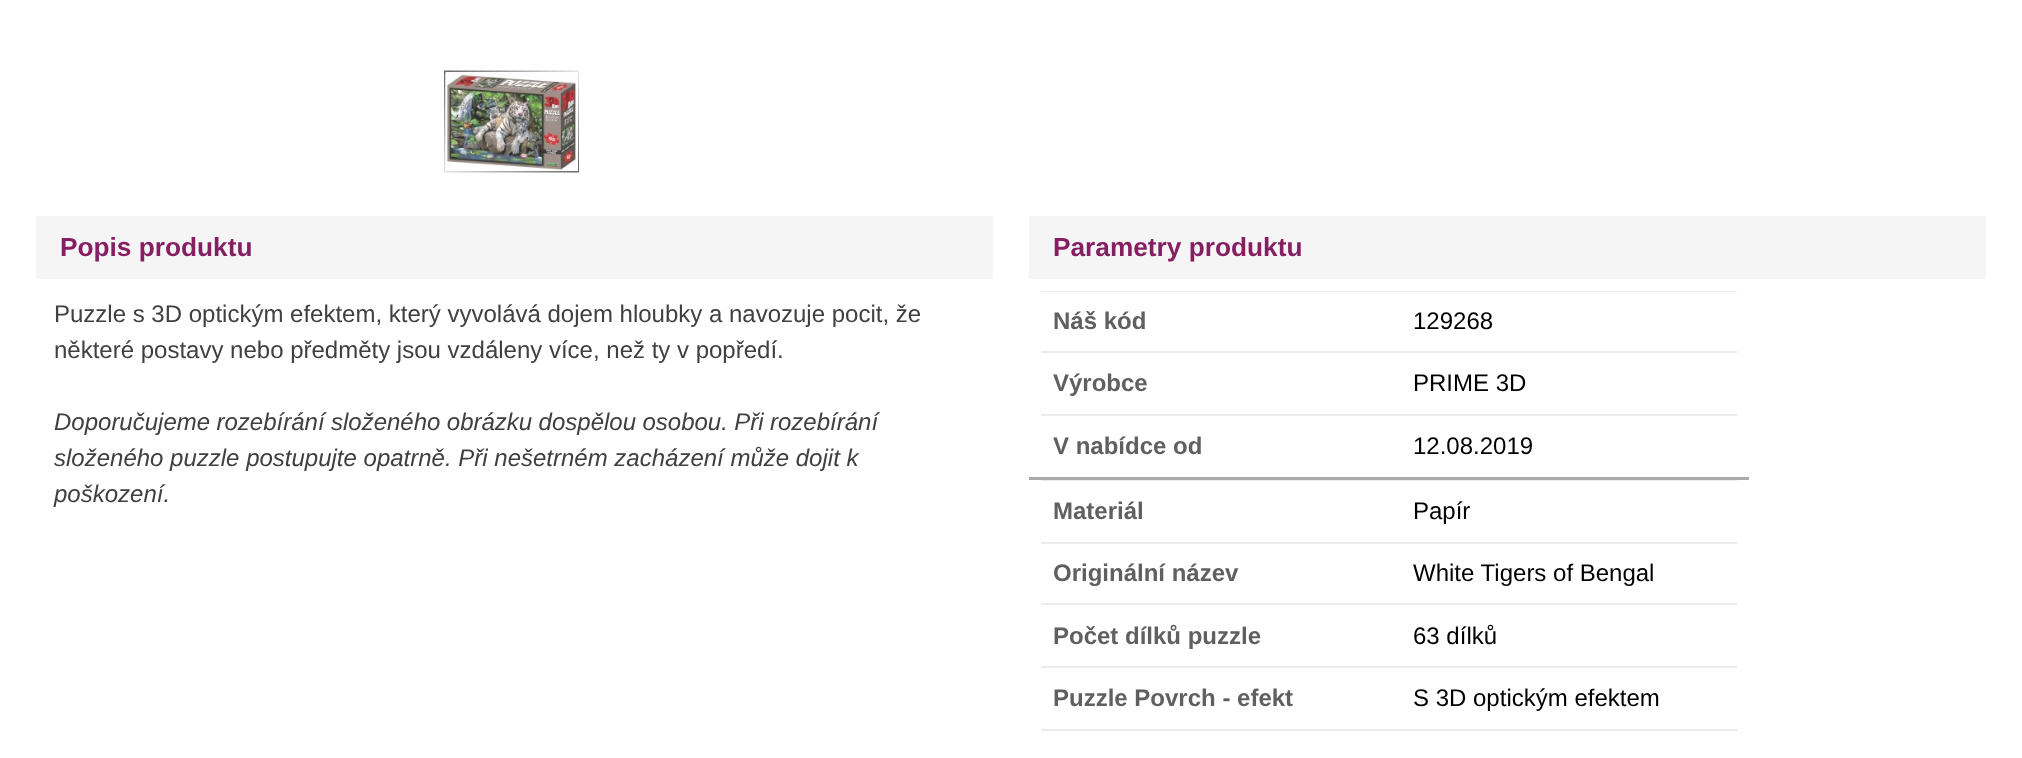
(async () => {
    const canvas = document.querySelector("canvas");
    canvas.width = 2022;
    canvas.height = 758;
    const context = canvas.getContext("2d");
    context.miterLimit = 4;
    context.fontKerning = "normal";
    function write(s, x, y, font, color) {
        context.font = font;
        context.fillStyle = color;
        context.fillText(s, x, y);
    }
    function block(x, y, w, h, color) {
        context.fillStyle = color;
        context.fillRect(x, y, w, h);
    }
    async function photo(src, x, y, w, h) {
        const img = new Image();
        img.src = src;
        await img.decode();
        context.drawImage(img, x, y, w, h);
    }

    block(0, 0, 2022, 758, "rgb(255, 255, 255)");
    await photo("media/1.png", 444, 70, 135, 103);
    block(577, 72, 1, 99, "rgb(255, 255, 255)");
    await photo("media/2.png", 445, 73, 133, 98);
    block(36, 216, 957, 63, "rgb(245, 245, 245)");
    write("Popis produktu", 60, 256, "bold 26.25px Liberation Sans", "rgb(133, 31, 98)");
    write("Puzzle s 3D optickým efektem, který vyvolává dojem hloubky a navozuje pocit, že", 54, 322, "24px Liberation Sans", "rgb(64, 64, 64)");
    write("některé postavy nebo předměty jsou vzdáleny více, než ty v popředí.", 54, 358, "24px Liberation Sans", "rgb(64, 64, 64)");
    context.wordSpacing = "-0.25px";
    write("Doporučujeme rozebírání složeného obrázku dospělou osobou. Při rozebírání", 54, 430, "italic 24px Liberation Sans", "rgb(64, 64, 64)");
    context.wordSpacing = "0px";
    write("složeného puzzle postupujte opatrně. Při nešetrném zacházení může dojit k", 54, 466, "italic 24px Liberation Sans", "rgb(64, 64, 64)");
    write("poškození.", 54, 502, "italic 24px Liberation Sans", "rgb(64, 64, 64)");
    block(1029, 216, 957, 63, "rgb(245, 245, 245)");
    write("Parametry produktu", 1053, 256, "bold 26.25px Liberation Sans", "rgb(133, 31, 98)");
    block(1041, 291, 696, 1, "rgb(235, 235, 235)");
    write("Náš kód", 1053, 329, "bold 24px Liberation Sans", "rgb(96, 96, 96)");
    write("129268", 1413, 329, "24px Liberation Sans", "rgb(0, 0, 0)");
    block(1041, 351, 696, 2, "rgb(235, 235, 235)");
    write("Výrobce", 1053, 391, "bold 24px Liberation Sans", "rgb(96, 96, 96)");
    write("PRIME 3D", 1413, 391, "24px Liberation Sans", "rgb(0, 0, 0)");
    block(1041, 414, 696, 2, "rgb(235, 235, 235)");
    write("V nabídce od", 1053, 454, "bold 24px Liberation Sans", "rgb(96, 96, 96)");
    write("12.08.2019", 1413, 454, "24px Liberation Sans", "rgb(0, 0, 0)");
    block(1029, 477, 720, 3, "rgb(171, 171, 171)");
    block(1041, 480, 696, 1, "rgb(235, 235, 235)");
    write("Materiál", 1053, 519, "bold 24px Liberation Sans", "rgb(96, 96, 96)");
    write("Papír", 1413, 519, "24px Liberation Sans", "rgb(0, 0, 0)");
    block(1041, 542, 696, 2, "rgb(235, 235, 235)");
    write("Originální název", 1053, 581, "bold 24px Liberation Sans", "rgb(96, 96, 96)");
    write("White Tigers of Bengal", 1413, 581, "24px Liberation Sans", "rgb(0, 0, 0)");
    block(1041, 603, 696, 2, "rgb(235, 235, 235)");
    write("Počet dílků puzzle", 1053, 644, "bold 24px Liberation Sans", "rgb(96, 96, 96)");
    write("63 dílků", 1413, 644, "24px Liberation Sans", "rgb(0, 0, 0)");
    block(1041, 666, 696, 2, "rgb(235, 235, 235)");
    write("Puzzle Povrch - efekt", 1053, 706, "bold 24px Liberation Sans", "rgb(96, 96, 96)");
    write("S 3D optickým efektem", 1413, 706, "24px Liberation Sans", "rgb(0, 0, 0)");
    block(1041, 729, 696, 2, "rgb(235, 235, 235)");
})();
